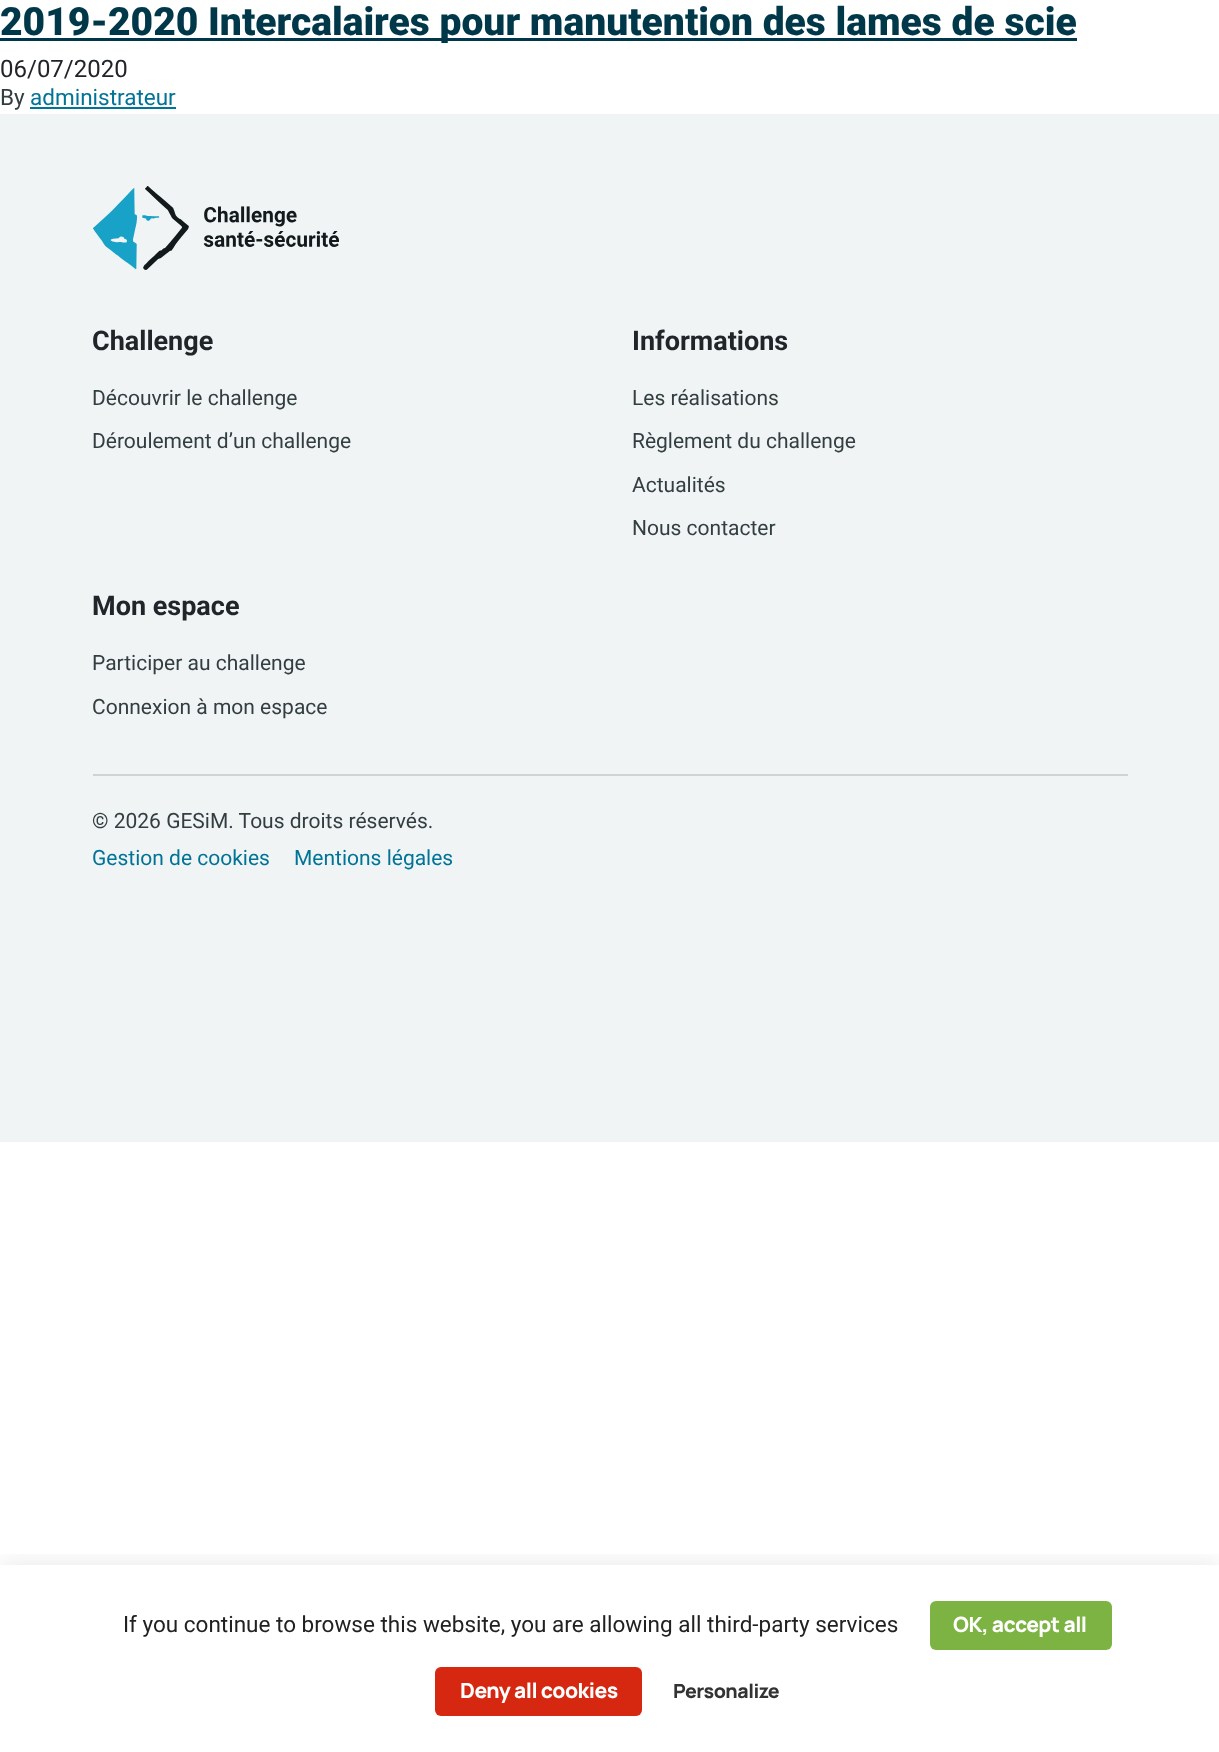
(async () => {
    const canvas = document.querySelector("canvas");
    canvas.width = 1219;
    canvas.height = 1752;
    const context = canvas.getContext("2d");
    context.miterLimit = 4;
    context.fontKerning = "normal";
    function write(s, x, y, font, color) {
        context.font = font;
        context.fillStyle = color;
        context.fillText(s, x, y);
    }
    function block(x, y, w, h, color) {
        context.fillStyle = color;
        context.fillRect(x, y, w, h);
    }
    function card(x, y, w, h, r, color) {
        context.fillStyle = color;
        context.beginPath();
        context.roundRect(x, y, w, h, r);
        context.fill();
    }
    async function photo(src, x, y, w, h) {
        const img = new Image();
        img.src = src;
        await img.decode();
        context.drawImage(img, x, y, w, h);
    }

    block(0, 0, 1219, 1752, "rgb(255, 255, 255)");
    block(0, 38, 1077, 3, "rgb(0, 56, 74)");
    write("2019-2020 Intercalaires pour manutention des lames de scie", 0, 35, "900 39px Roboto", "rgb(0, 56, 74)");
    write("06/07/2020", 0, 77, "24px Roboto", "rgb(33, 37, 41)");
    write("By", 0, 105, "22.5px Roboto", "rgb(51, 62, 64)");
    write("administrateur", 30, 105, "22.5px Roboto", "rgb(0, 115, 150)");
    block(30, 107, 146, 2, "rgb(0, 115, 150)");
    block(0, 114, 1219, 1028, "rgb(240, 244, 245)");
    await photo("media/1.png", 93, 186, 246, 84);
    write("Challenge", 92, 350, "bold 27px Roboto", "rgb(33, 37, 41)");
    write("Découvrir le challenge", 92, 405, "21px Roboto", "rgb(51, 62, 64)");
    write("Déroulement d’un challenge", 92, 448, "21px Roboto", "rgb(51, 62, 64)");
    write("Informations", 632, 350, "bold 27px Roboto", "rgb(33, 37, 41)");
    write("Les réalisations", 632, 405, "21px Roboto", "rgb(51, 62, 64)");
    write("Règlement du challenge", 632, 448, "21px Roboto", "rgb(51, 62, 64)");
    write("Actualités", 632, 492, "21px Roboto", "rgb(51, 62, 64)");
    write("Nous contacter", 632, 535, "21px Roboto", "rgb(51, 62, 64)");
    write("Mon espace", 92, 615, "bold 27px Roboto", "rgb(33, 37, 41)");
    write("Participer au challenge", 92, 670, "21px Roboto", "rgb(51, 62, 64)");
    write("Connexion à mon espace", 92, 714, "21px Roboto", "rgb(51, 62, 64)");
    block(93, 774, 1035, 2, "rgb(206, 212, 214)");
    write("© 2026 GESiM. Tous droits réservés.", 92, 828, "21px Roboto", "rgb(51, 62, 64)");
    write("Gestion de cookies", 92, 865, "21px Roboto", "rgb(0, 115, 150)");
    write("Mentions légales", 294, 865, "21px Roboto", "rgb(0, 115, 150)");
    context.save();
    context.beginPath();
    context.rect(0, 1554, 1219, 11);
    context.clip();
    context.fillStyle = "rgba(0, 0, 0, 0.08)";
    context.filter = "blur(12px)";
    context.beginPath();
    context.rect(0, 1562, 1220, 187);
    context.fill();
    context.filter = "none";
    context.restore();
    write("If you continue to browse this website, you are allowing all third-party services", 123, 1632, "22.5px Roboto", "rgb(33, 33, 33)");
    card(930, 1601, 182, 49, 6, "rgb(124, 179, 66)");
    context.letterSpacing = "-0.5px";
    write("OK, accept all", 953, 1632, "800 21px Manrope", "rgb(255, 255, 255)");
    card(435, 1667, 207, 49, 6, "rgb(214, 39, 16)");
    write("Deny all cookies", 460, 1698, "800 21px Manrope", "rgb(255, 255, 255)");
    write("Personalize", 673, 1698, "800 19.5px Manrope", "rgb(51, 51, 51)");
})();
